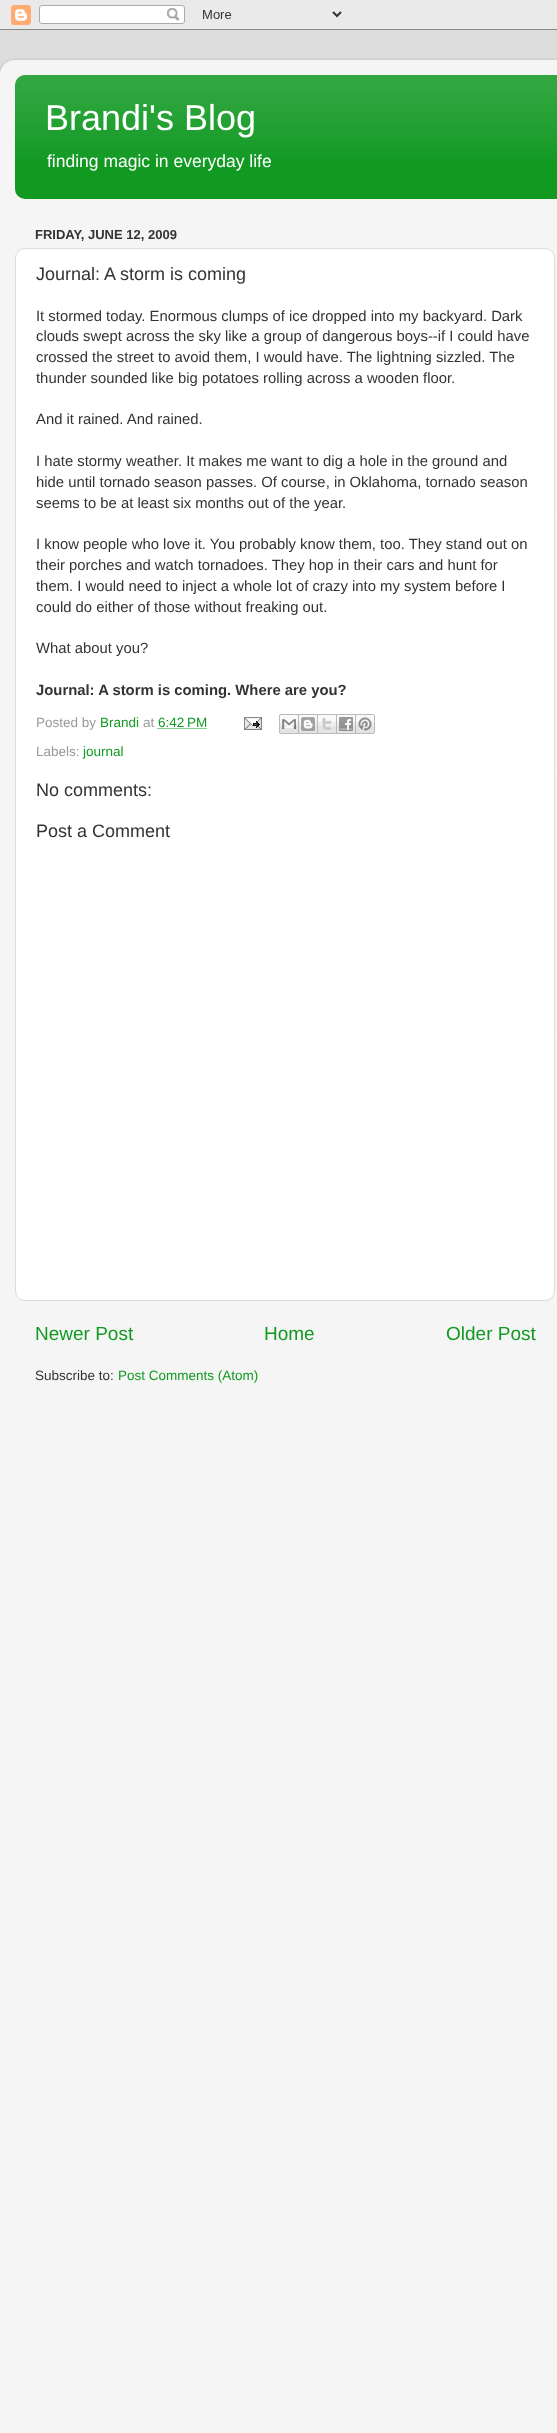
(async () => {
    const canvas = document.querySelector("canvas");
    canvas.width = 557;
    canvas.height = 2433;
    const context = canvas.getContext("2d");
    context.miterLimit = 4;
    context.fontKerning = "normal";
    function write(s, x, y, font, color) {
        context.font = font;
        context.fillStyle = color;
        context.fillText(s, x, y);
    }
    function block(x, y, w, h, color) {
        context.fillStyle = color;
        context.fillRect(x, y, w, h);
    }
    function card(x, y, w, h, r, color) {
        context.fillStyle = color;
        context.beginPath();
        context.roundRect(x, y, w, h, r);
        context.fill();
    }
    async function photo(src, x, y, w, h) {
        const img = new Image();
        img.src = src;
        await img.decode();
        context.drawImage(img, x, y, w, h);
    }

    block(0, 0, 557, 2433, "rgb(221, 221, 221)");
    await photo("media/1.png", 0, 0, 557, 30);
    context.save();
    context.beginPath();
    context.moveTo(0, 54);
    context.lineTo(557, 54);
    context.lineTo(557, 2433);
    context.lineTo(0, 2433);
    context.closePath();
    context.moveTo(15, 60);
    context.lineTo(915, 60);
    context.bezierCurveTo(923.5, 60, 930, 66.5, 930, 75);
    context.lineTo(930, 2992);
    context.bezierCurveTo(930, 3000.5, 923.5, 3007, 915, 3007);
    context.lineTo(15, 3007);
    context.bezierCurveTo(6.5, 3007, 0, 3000.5, 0, 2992);
    context.lineTo(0, 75);
    context.bezierCurveTo(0, 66.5, 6.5, 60, 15, 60);
    context.closePath();
    context.clip("evenodd");
    context.fillStyle = "rgba(0, 0, 0, 0.15)";
    context.filter = "blur(1.5px)";
    context.beginPath();
    context.roundRect(0, 60, 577, 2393, 15);
    context.fill();
    context.filter = "none";
    context.restore();
    await photo("media/2.png", 0, 60, 557, 2373);
    card(15, 75, 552, 124, 10, "rgb(17, 153, 34)");
    await photo("media/3.png", 15, 75, 542, 84);
    write("Brandi's Blog", 45, 130, "36px Liberation Sans", "rgb(255, 255, 255)");
    write("finding magic in everyday life", 47, 167, "17.5px Liberation Sans", "rgb(255, 255, 255)");
    write("FRIDAY, JUNE 12, 2009", 35, 239, "bold 13px Liberation Sans", "rgb(51, 51, 51)");
    context.fillStyle = "rgb(255, 255, 255)";
    context.beginPath();
    context.roundRect(15.5, 248.5, 539, 1052, 9.5);
    context.fill();
    context.strokeStyle = "rgb(221, 221, 221)";
    context.stroke();
    write("Journal: A storm is coming", 36, 280, "18px Liberation Sans", "rgb(51, 51, 51)");
    write("It stormed today. Enormous clumps of ice dropped into my backyard. Dark", 36, 321, "14.85px Liberation Sans", "rgb(51, 51, 51)");
    write("clouds swept across the sky like a group of dangerous boys--if I could have", 36, 341, "14.85px Liberation Sans", "rgb(51, 51, 51)");
    write("crossed the street to avoid them, I would have. The lightning sizzled. The", 36, 362, "14.85px Liberation Sans", "rgb(51, 51, 51)");
    write("thunder sounded like big potatoes rolling across a wooden floor.", 36, 383, "14.85px Liberation Sans", "rgb(51, 51, 51)");
    write("And it rained. And rained.", 36, 424, "14.85px Liberation Sans", "rgb(51, 51, 51)");
    write("I hate stormy weather. It makes me want to dig a hole in the ground and", 36, 466, "14.85px Liberation Sans", "rgb(51, 51, 51)");
    write("hide until tornado season passes. Of course, in Oklahoma, tornado season", 36, 487, "14.85px Liberation Sans", "rgb(51, 51, 51)");
    write("seems to be at least six months out of the year.", 36, 508, "14.85px Liberation Sans", "rgb(51, 51, 51)");
    write("I know people who love it. You probably know them, too. They stand out on", 36, 549, "14.85px Liberation Sans", "rgb(51, 51, 51)");
    write("their porches and watch tornadoes. They hop in their cars and hunt for", 36, 570, "14.85px Liberation Sans", "rgb(51, 51, 51)");
    write("them. I would need to inject a whole lot of crazy into my system before I", 36, 591, "14.85px Liberation Sans", "rgb(51, 51, 51)");
    write("could do either of those without freaking out.", 36, 612, "14.85px Liberation Sans", "rgb(51, 51, 51)");
    write("What about you?", 36, 653, "14.85px Liberation Sans", "rgb(51, 51, 51)");
    write("Journal: A storm is coming. Where are you?", 36, 695, "bold 14.85px Liberation Sans", "rgb(51, 51, 51)");
    write("Posted by", 36, 727, "13.5px Liberation Sans", "rgb(153, 153, 153)");
    write("Brandi", 100, 727, "13.5px Liberation Sans", "rgb(17, 153, 34)");
    write("at", 143, 727, "13.5px Liberation Sans", "rgb(153, 153, 153)");
    write("6:42 PM", 158, 727, "13.5px Liberation Sans", "rgb(17, 153, 34)");
    context.beginPath();
    context.moveTo(157.5, 728.5);
    context.lineTo(207, 728.5);
    context.strokeStyle = "rgb(17, 153, 34)";
    context.setLineDash([1, 1]);
    context.stroke();
    await photo("media/4.png", 244, 717, 18, 13);
    await photo("media/5.png", 279, 714, 20, 20);
    await photo("media/6.png", 299, 714, 19, 20);
    await photo("media/7.png", 318, 714, 19, 20);
    await photo("media/8.png", 337, 714, 19, 20);
    await photo("media/9.png", 356, 714, 19, 20);
    write("Labels:", 36, 756, "13.5px Liberation Sans", "rgb(153, 153, 153)");
    write("journal", 83, 756, "13.5px Liberation Sans", "rgb(17, 153, 34)");
    write("No comments:", 36, 796, "18px Liberation Sans", "rgb(51, 51, 51)");
    write("Post a Comment", 36, 837, "18px Liberation Sans", "rgb(51, 51, 51)");
    write("Newer Post", 35, 1340, "19px Liberation Sans", "rgb(17, 153, 34)");
    write("Home", 264, 1340, "19px Liberation Sans", "rgb(17, 153, 34)");
    write("Older Post", 446, 1340, "19px Liberation Sans", "rgb(17, 153, 34)");
    write("Subscribe to:", 35, 1380, "13.5px Liberation Sans", "rgb(51, 51, 51)");
    write("Post Comments (Atom)", 118, 1380, "13.5px Liberation Sans", "rgb(17, 153, 34)");
})();
